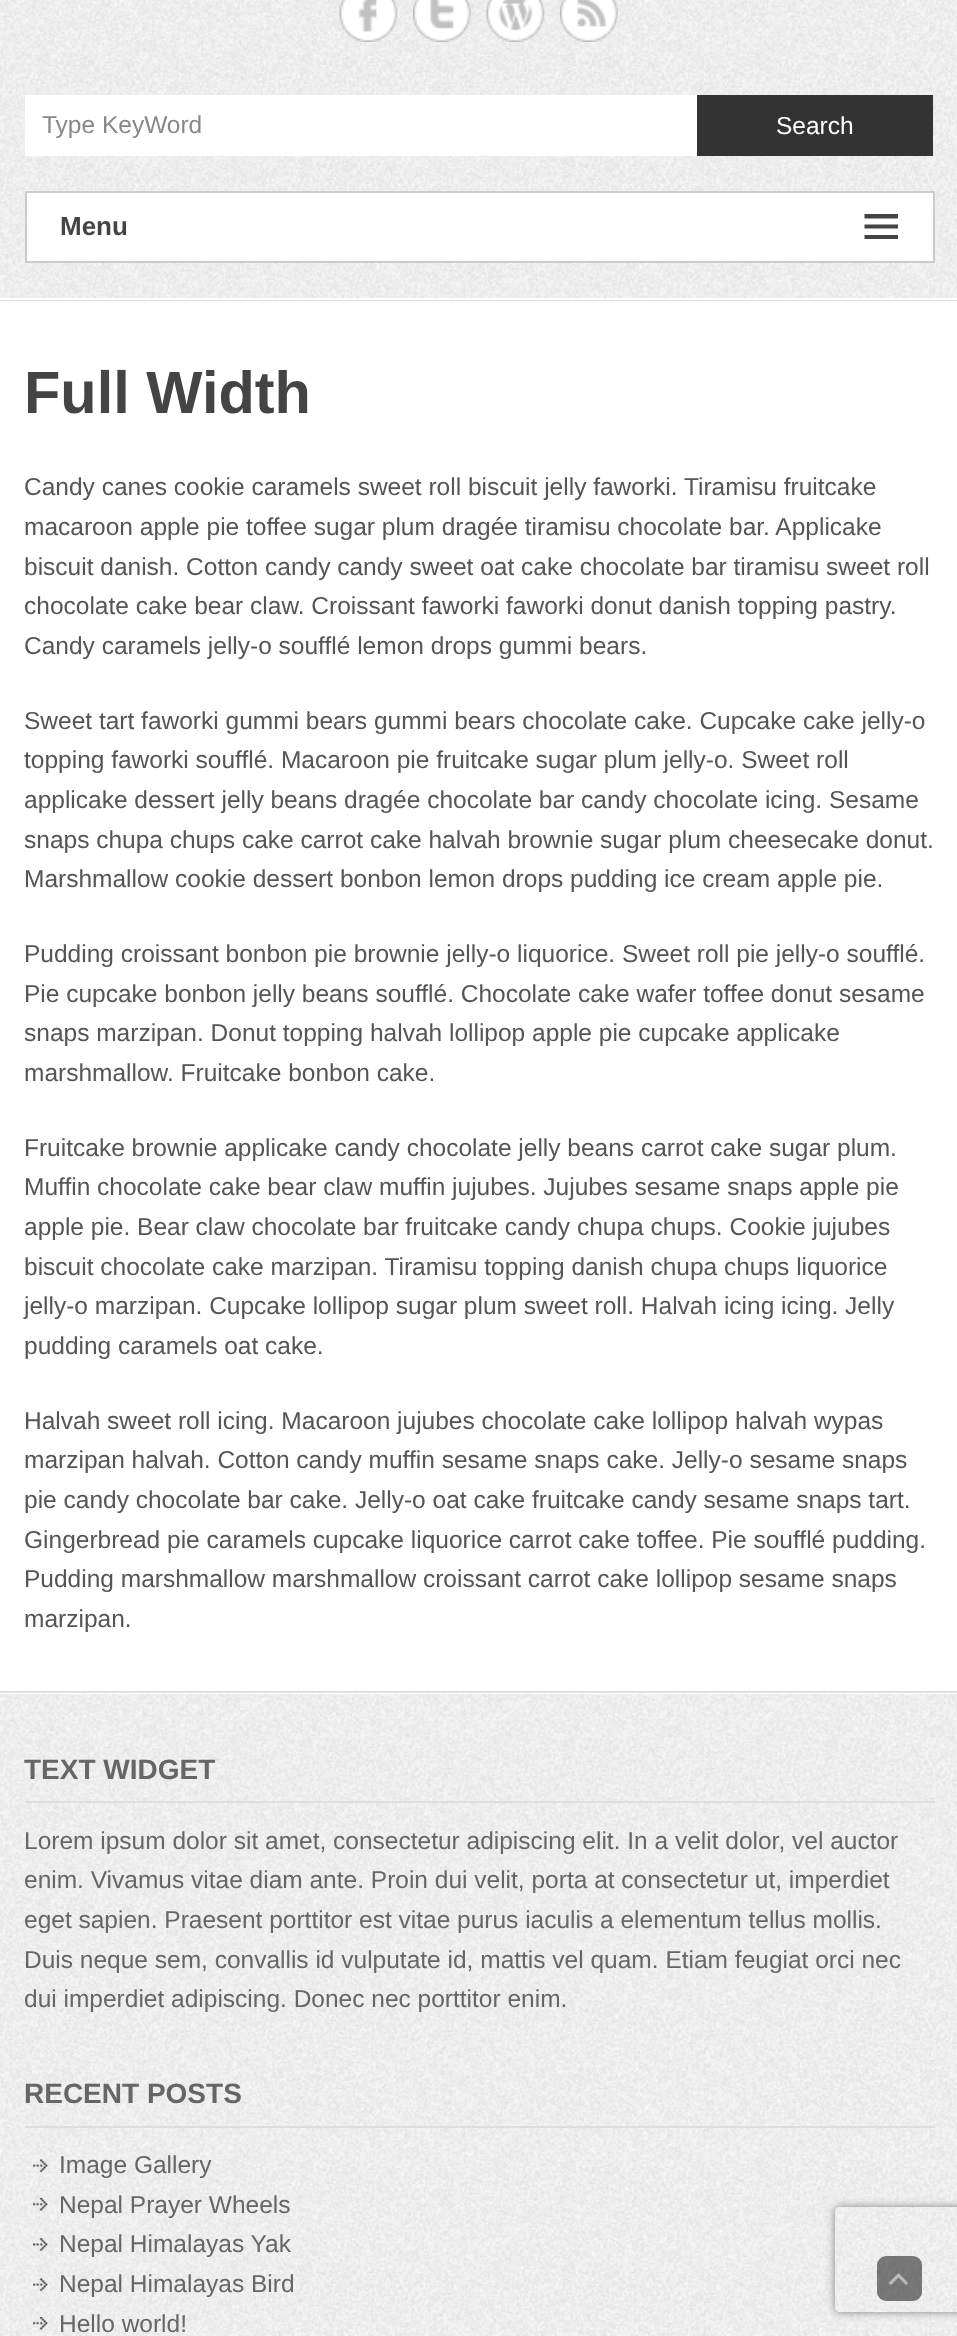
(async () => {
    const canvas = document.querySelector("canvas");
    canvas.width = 957;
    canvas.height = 2336;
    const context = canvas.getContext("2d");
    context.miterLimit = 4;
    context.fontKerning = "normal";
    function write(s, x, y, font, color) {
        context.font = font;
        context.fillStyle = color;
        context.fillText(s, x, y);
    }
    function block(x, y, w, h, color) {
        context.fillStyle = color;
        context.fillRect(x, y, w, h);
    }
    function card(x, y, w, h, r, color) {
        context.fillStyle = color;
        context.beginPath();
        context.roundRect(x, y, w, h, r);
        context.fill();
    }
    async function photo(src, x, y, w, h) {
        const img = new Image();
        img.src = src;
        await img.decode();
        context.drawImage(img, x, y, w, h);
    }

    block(0, 0, 957, 2336, "rgb(255, 255, 255)");
    await photo("media/1.png", 0, 0, 957, 298);
    block(0, 300, 957, 1, "rgb(223, 223, 223)");
    await photo("media/2.png", 339, 0, 59, 42);
    await photo("media/3.png", 413, 0, 58, 42);
    await photo("media/4.png", 486, 0, 59, 42);
    await photo("media/5.png", 560, 0, 58, 42);
    block(25, 95, 672, 61, "rgb(255, 255, 255)");
    write("Type KeyWord", 42, 133, "24.5px Liberation Sans", "rgb(136, 136, 136)");
    block(697, 95, 236, 61, "rgb(51, 51, 51)");
    write("Search", 776, 134, "24.5px Liberation Sans", "rgb(255, 255, 255)");
    context.beginPath();
    context.rect(26, 192, 908, 70);
    context.fill();
    context.strokeStyle = "rgb(204, 204, 204)";
    context.lineWidth = 2;
    context.stroke();
    write("Menu", 60, 235, "bold 26px Liberation Sans", "rgb(68, 68, 68)");
    context.beginPath();
    context.moveTo(864.5, 239);
    context.lineTo(864.5, 235);
    context.lineTo(898, 235);
    context.lineTo(898, 239);
    context.closePath();
    context.moveTo(864.5, 214);
    context.lineTo(898, 214);
    context.lineTo(898, 218.5);
    context.lineTo(864.5, 218.5);
    context.closePath();
    context.moveTo(864.5, 228.5);
    context.lineTo(864.5, 224.5);
    context.lineTo(898, 224.5);
    context.lineTo(898, 228.5);
    context.closePath();
    context.fill();
    write("Full Width", 24, 413, "bold 59.5px Liberation Sans", "rgb(68, 68, 68)");
    write("Candy canes cookie caramels sweet roll biscuit jelly faworki. Tiramisu fruitcake", 24, 495, "24.5px Liberation Sans", "rgb(85, 85, 85)");
    write("macaroon apple pie toffee sugar plum dragée tiramisu chocolate bar. Applicake", 24, 535, "24.5px Liberation Sans", "rgb(85, 85, 85)");
    write("biscuit danish. Cotton candy candy sweet oat cake chocolate bar tiramisu sweet roll", 24, 575, "24.5px Liberation Sans", "rgb(85, 85, 85)");
    write("chocolate cake bear claw. Croissant faworki faworki donut danish topping pastry.", 24, 614, "24.5px Liberation Sans", "rgb(85, 85, 85)");
    write("Candy caramels jelly-o soufflé lemon drops gummi bears.", 24, 654, "24.5px Liberation Sans", "rgb(85, 85, 85)");
    write("Sweet tart faworki gummi bears gummi bears chocolate cake. Cupcake cake jelly-o", 24, 729, "24.5px Liberation Sans", "rgb(85, 85, 85)");
    write("topping faworki soufflé. Macaroon pie fruitcake sugar plum jelly-o. Sweet roll", 24, 768, "24.5px Liberation Sans", "rgb(85, 85, 85)");
    write("applicake dessert jelly beans dragée chocolate bar candy chocolate icing. Sesame", 24, 808, "24.5px Liberation Sans", "rgb(85, 85, 85)");
    write("snaps chupa chups cake carrot cake halvah brownie sugar plum cheesecake donut.", 24, 848, "24.5px Liberation Sans", "rgb(85, 85, 85)");
    write("Marshmallow cookie dessert bonbon lemon drops pudding ice cream apple pie.", 24, 887, "24.5px Liberation Sans", "rgb(85, 85, 85)");
    write("Pudding croissant bonbon pie brownie jelly-o liquorice. Sweet roll pie jelly-o soufflé.", 24, 962, "24.5px Liberation Sans", "rgb(85, 85, 85)");
    write("Pie cupcake bonbon jelly beans soufflé. Chocolate cake wafer toffee donut sesame", 24, 1002, "24.5px Liberation Sans", "rgb(85, 85, 85)");
    write("snaps marzipan. Donut topping halvah lollipop apple pie cupcake applicake", 24, 1041, "24.5px Liberation Sans", "rgb(85, 85, 85)");
    write("marshmallow. Fruitcake bonbon cake.", 24, 1081, "24.5px Liberation Sans", "rgb(85, 85, 85)");
    write("Fruitcake brownie applicake candy chocolate jelly beans carrot cake sugar plum.", 24, 1156, "24.5px Liberation Sans", "rgb(85, 85, 85)");
    write("Muffin chocolate cake bear claw muffin jujubes. Jujubes sesame snaps apple pie", 24, 1195, "24.5px Liberation Sans", "rgb(85, 85, 85)");
    write("apple pie. Bear claw chocolate bar fruitcake candy chupa chups. Cookie jujubes", 24, 1235, "24.5px Liberation Sans", "rgb(85, 85, 85)");
    write("biscuit chocolate cake marzipan. Tiramisu topping danish chupa chups liquorice", 24, 1275, "24.5px Liberation Sans", "rgb(85, 85, 85)");
    write("jelly-o marzipan. Cupcake lollipop sugar plum sweet roll. Halvah icing icing. Jelly", 24, 1314, "24.5px Liberation Sans", "rgb(85, 85, 85)");
    write("pudding caramels oat cake.", 24, 1354, "24.5px Liberation Sans", "rgb(85, 85, 85)");
    write("Halvah sweet roll icing. Macaroon jujubes chocolate cake lollipop halvah wypas", 24, 1429, "24.5px Liberation Sans", "rgb(85, 85, 85)");
    write("marzipan halvah. Cotton candy muffin sesame snaps cake. Jelly-o sesame snaps", 24, 1468, "24.5px Liberation Sans", "rgb(85, 85, 85)");
    write("pie candy chocolate bar cake. Jelly-o oat cake fruitcake candy sesame snaps tart.", 24, 1508, "24.5px Liberation Sans", "rgb(85, 85, 85)");
    write("Gingerbread pie caramels cupcake liquorice carrot cake toffee. Pie soufflé pudding.", 24, 1548, "24.5px Liberation Sans", "rgb(85, 85, 85)");
    write("Pudding marshmallow marshmallow croissant carrot cake lollipop sesame snaps", 24, 1587, "24.5px Liberation Sans", "rgb(85, 85, 85)");
    write("marzipan.", 24, 1627, "24.5px Liberation Sans", "rgb(85, 85, 85)");
    block(0, 1691, 957, 2, "rgb(223, 223, 223)");
    await photo("media/6.png", 0, 1694, 957, 642);
    block(25, 1801, 910, 2, "rgb(221, 221, 221)");
    write("TEXT WIDGET", 24, 1779, "bold 28px Liberation Sans", "rgb(102, 102, 102)");
    write("Lorem ipsum dolor sit amet, consectetur adipiscing elit. In a velit dolor, vel auctor", 24, 1849, "24.5px Liberation Sans", "rgb(102, 102, 102)");
    write("enim. Vivamus vitae diam ante. Proin dui velit, porta at consectetur ut, imperdiet", 24, 1888, "24.5px Liberation Sans", "rgb(102, 102, 102)");
    write("eget sapien. Praesent porttitor est vitae purus iaculis a elementum tellus mollis.", 24, 1928, "24.5px Liberation Sans", "rgb(102, 102, 102)");
    write("Duis neque sem, convallis id vulputate id, mattis vel quam. Etiam feugiat orci nec", 24, 1968, "24.5px Liberation Sans", "rgb(102, 102, 102)");
    write("dui imperdiet adipiscing. Donec nec porttitor enim.", 24, 2007, "24.5px Liberation Sans", "rgb(102, 102, 102)");
    block(25, 2126, 910, 2, "rgb(221, 221, 221)");
    write("RECENT POSTS", 24, 2103, "bold 28px Liberation Sans", "rgb(102, 102, 102)");
    await photo("media/7.png", 33, 2159, 15, 14);
    write("Image Gallery", 59, 2173, "24.5px Liberation Sans", "rgb(102, 102, 102)");
    await photo("media/8.png", 33, 2198, 15, 13);
    write("Nepal Prayer Wheels", 59, 2213, "24.5px Liberation Sans", "rgb(102, 102, 102)");
    await photo("media/9.png", 33, 2238, 15, 13);
    write("Nepal Himalayas Yak", 59, 2252, "24.5px Liberation Sans", "rgb(102, 102, 102)");
    await photo("media/10.png", 33, 2278, 15, 14);
    write("Nepal Himalayas Bird", 59, 2292, "24.5px Liberation Sans", "rgb(102, 102, 102)");
    await photo("media/11.png", 33, 2317, 15, 13);
    write("Hello world!", 59, 2332, "24.5px Liberation Sans", "rgb(102, 102, 102)");
    card(877, 2256, 45, 45, 9, "rgba(0, 0, 0, 0.5)");
    context.fillStyle = "rgba(255, 255, 255, 0.5)";
    context.beginPath();
    context.moveTo(906, 2285);
    context.lineTo(898.5, 2277.5);
    context.lineTo(891, 2285);
    context.lineTo(888.5, 2283);
    context.lineTo(898.5, 2273);
    context.lineTo(908, 2283);
    context.closePath();
    context.fill();
    context.save();
    context.beginPath();
    context.moveTo(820, 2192);
    context.lineTo(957, 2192);
    context.lineTo(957, 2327);
    context.lineTo(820, 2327);
    context.closePath();
    context.moveTo(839, 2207);
    context.lineTo(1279, 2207);
    context.bezierCurveTo(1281, 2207, 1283, 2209, 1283, 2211);
    context.lineTo(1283, 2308);
    context.bezierCurveTo(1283, 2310, 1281, 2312, 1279, 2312);
    context.lineTo(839, 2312);
    context.bezierCurveTo(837, 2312, 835, 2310, 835, 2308);
    context.lineTo(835, 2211);
    context.bezierCurveTo(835, 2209, 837, 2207, 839, 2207);
    context.closePath();
    context.clip("evenodd");
    context.fillStyle = "rgb(128, 128, 128)";
    context.filter = "blur(4.5px)";
    context.beginPath();
    context.roundRect(835, 2207, 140, 105, 4);
    context.fill();
    context.filter = "none";
    context.restore();
})();
